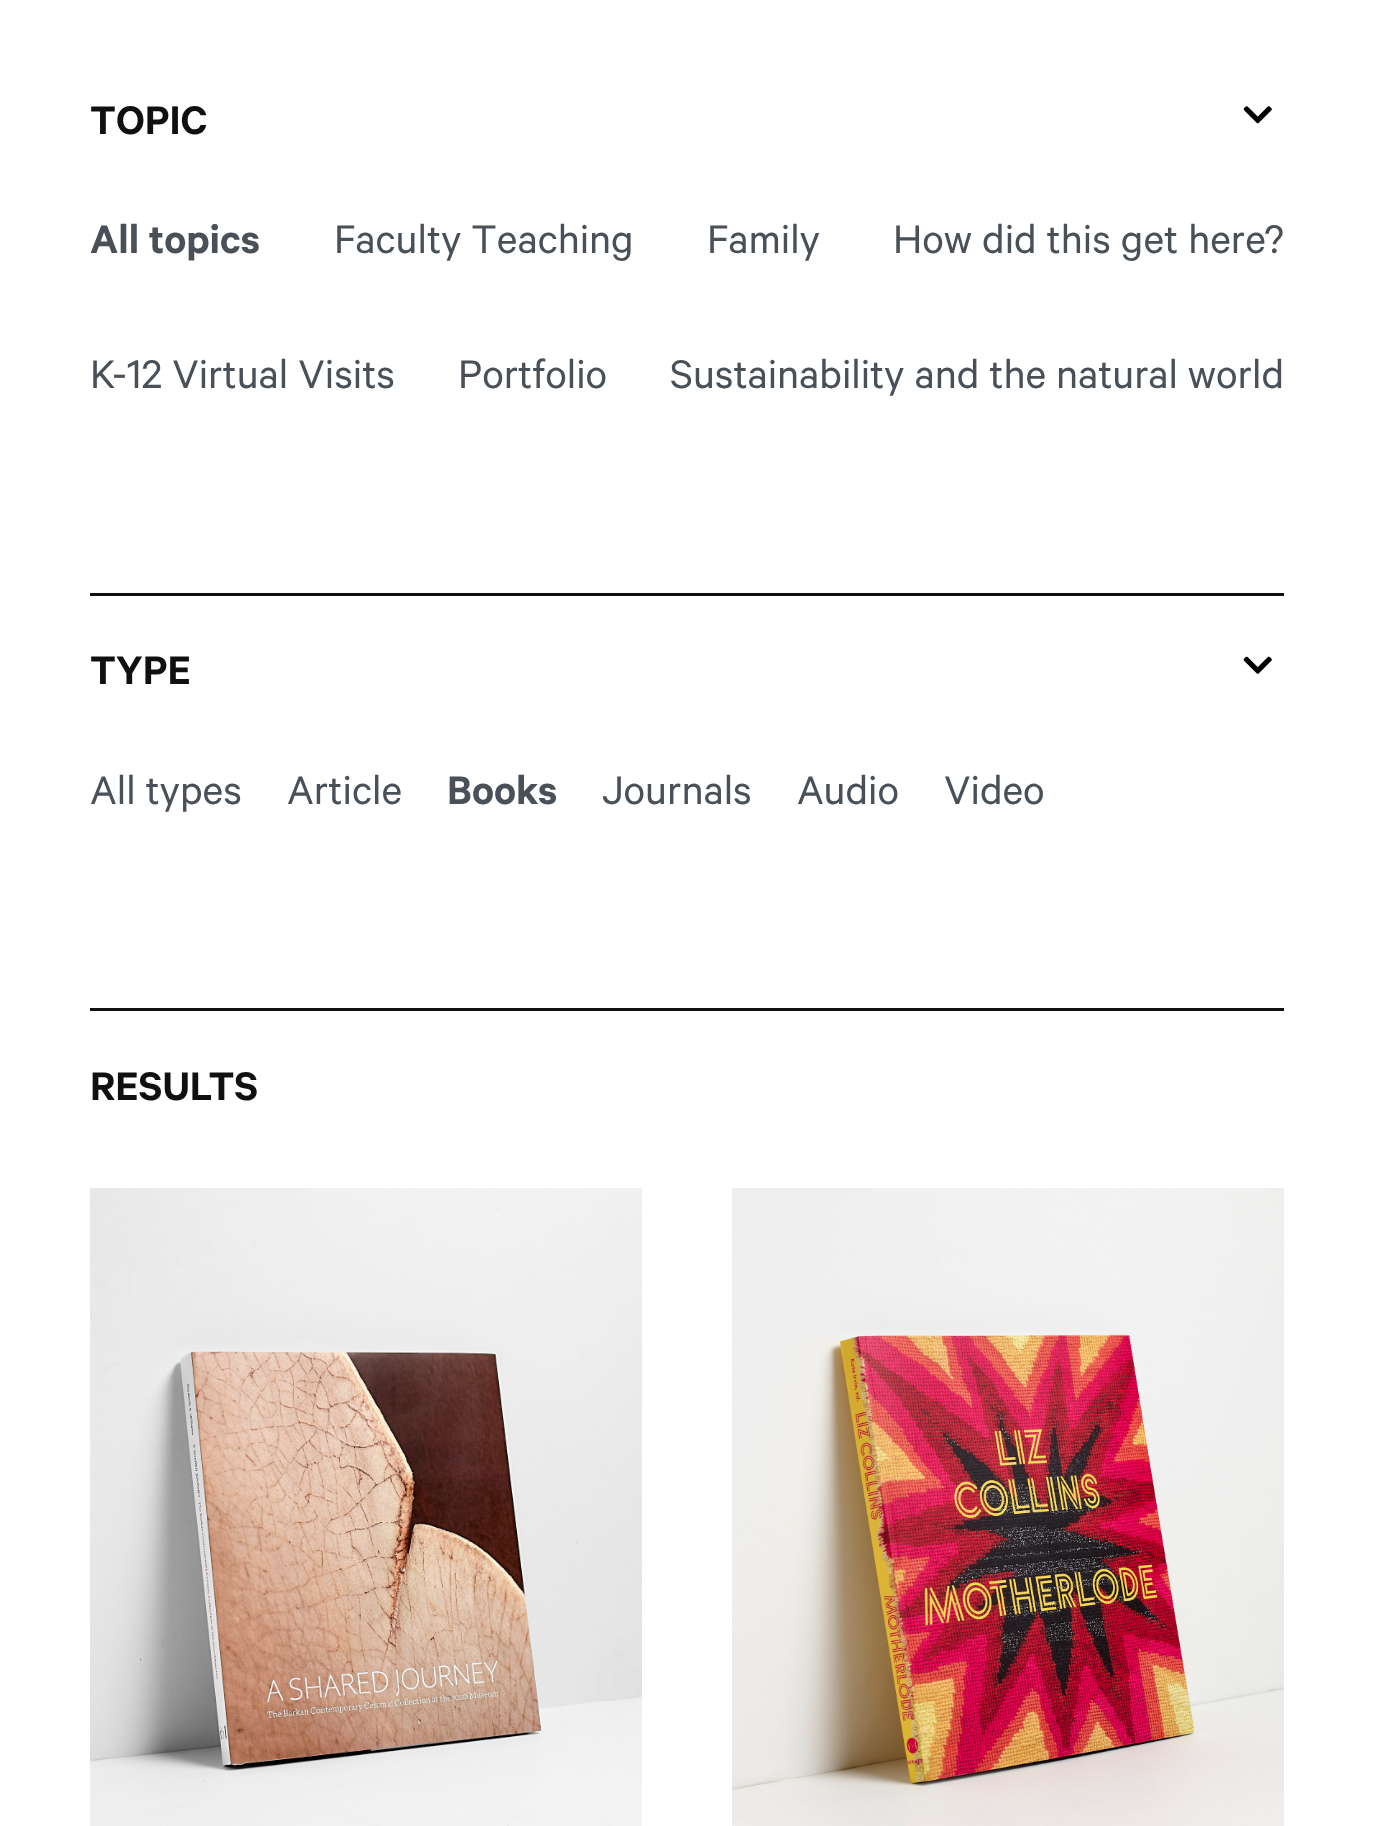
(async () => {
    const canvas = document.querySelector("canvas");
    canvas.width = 1374;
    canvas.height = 1826;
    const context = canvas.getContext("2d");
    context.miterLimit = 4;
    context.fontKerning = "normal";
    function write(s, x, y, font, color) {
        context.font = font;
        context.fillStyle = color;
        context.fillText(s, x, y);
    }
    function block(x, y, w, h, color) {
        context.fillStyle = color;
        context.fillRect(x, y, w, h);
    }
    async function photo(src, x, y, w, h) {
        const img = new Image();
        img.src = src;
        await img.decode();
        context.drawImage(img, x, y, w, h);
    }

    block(0, 0, 1374, 1826, "rgb(255, 255, 255)");
    write("TOPIC", 90, 134, "600 45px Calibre", "rgb(16, 16, 16)");
    await photo("media/1.png", 1243, 106, 29, 18);
    write("All topics", 90, 253, "600 45px Calibre", "rgb(73, 80, 87)");
    write("Faculty Teaching", 334, 253, "45px Calibre", "rgb(73, 80, 87)");
    write("Family", 707, 253, "45px Calibre", "rgb(73, 80, 87)");
    write("How did this get here?", 893, 253, "45px Calibre", "rgb(73, 80, 87)");
    write("K-12 Virtual Visits", 90, 388, "45px Calibre", "rgb(73, 80, 87)");
    write("Portfolio", 458, 388, "45px Calibre", "rgb(73, 80, 87)");
    write("Sustainability and the natural world", 670, 388, "45px Calibre", "rgb(73, 80, 87)");
    block(90, 593, 1194, 3, "rgb(16, 16, 16)");
    write("TYPE", 90, 684, "600 45px Calibre", "rgb(16, 16, 16)");
    await photo("media/2.png", 1243, 656, 29, 18);
    write("All types", 90, 804, "45px Calibre", "rgb(73, 80, 87)");
    write("Article", 287, 804, "45px Calibre", "rgb(73, 80, 87)");
    write("Books", 447, 804, "600 45px Calibre", "rgb(73, 80, 87)");
    write("Journals", 602, 804, "45px Calibre", "rgb(73, 80, 87)");
    write("Audio", 797, 804, "45px Calibre", "rgb(73, 80, 87)");
    write("Video", 944, 804, "45px Calibre", "rgb(73, 80, 87)");
    block(90, 1008, 1194, 3, "rgb(16, 16, 16)");
    write("RESULTS", 90, 1100, "600 45px Calibre", "rgb(16, 16, 16)");
    await photo("media/3.png", 90, 1188, 552, 638);
    await photo("media/4.png", 732, 1188, 552, 638);
})();
